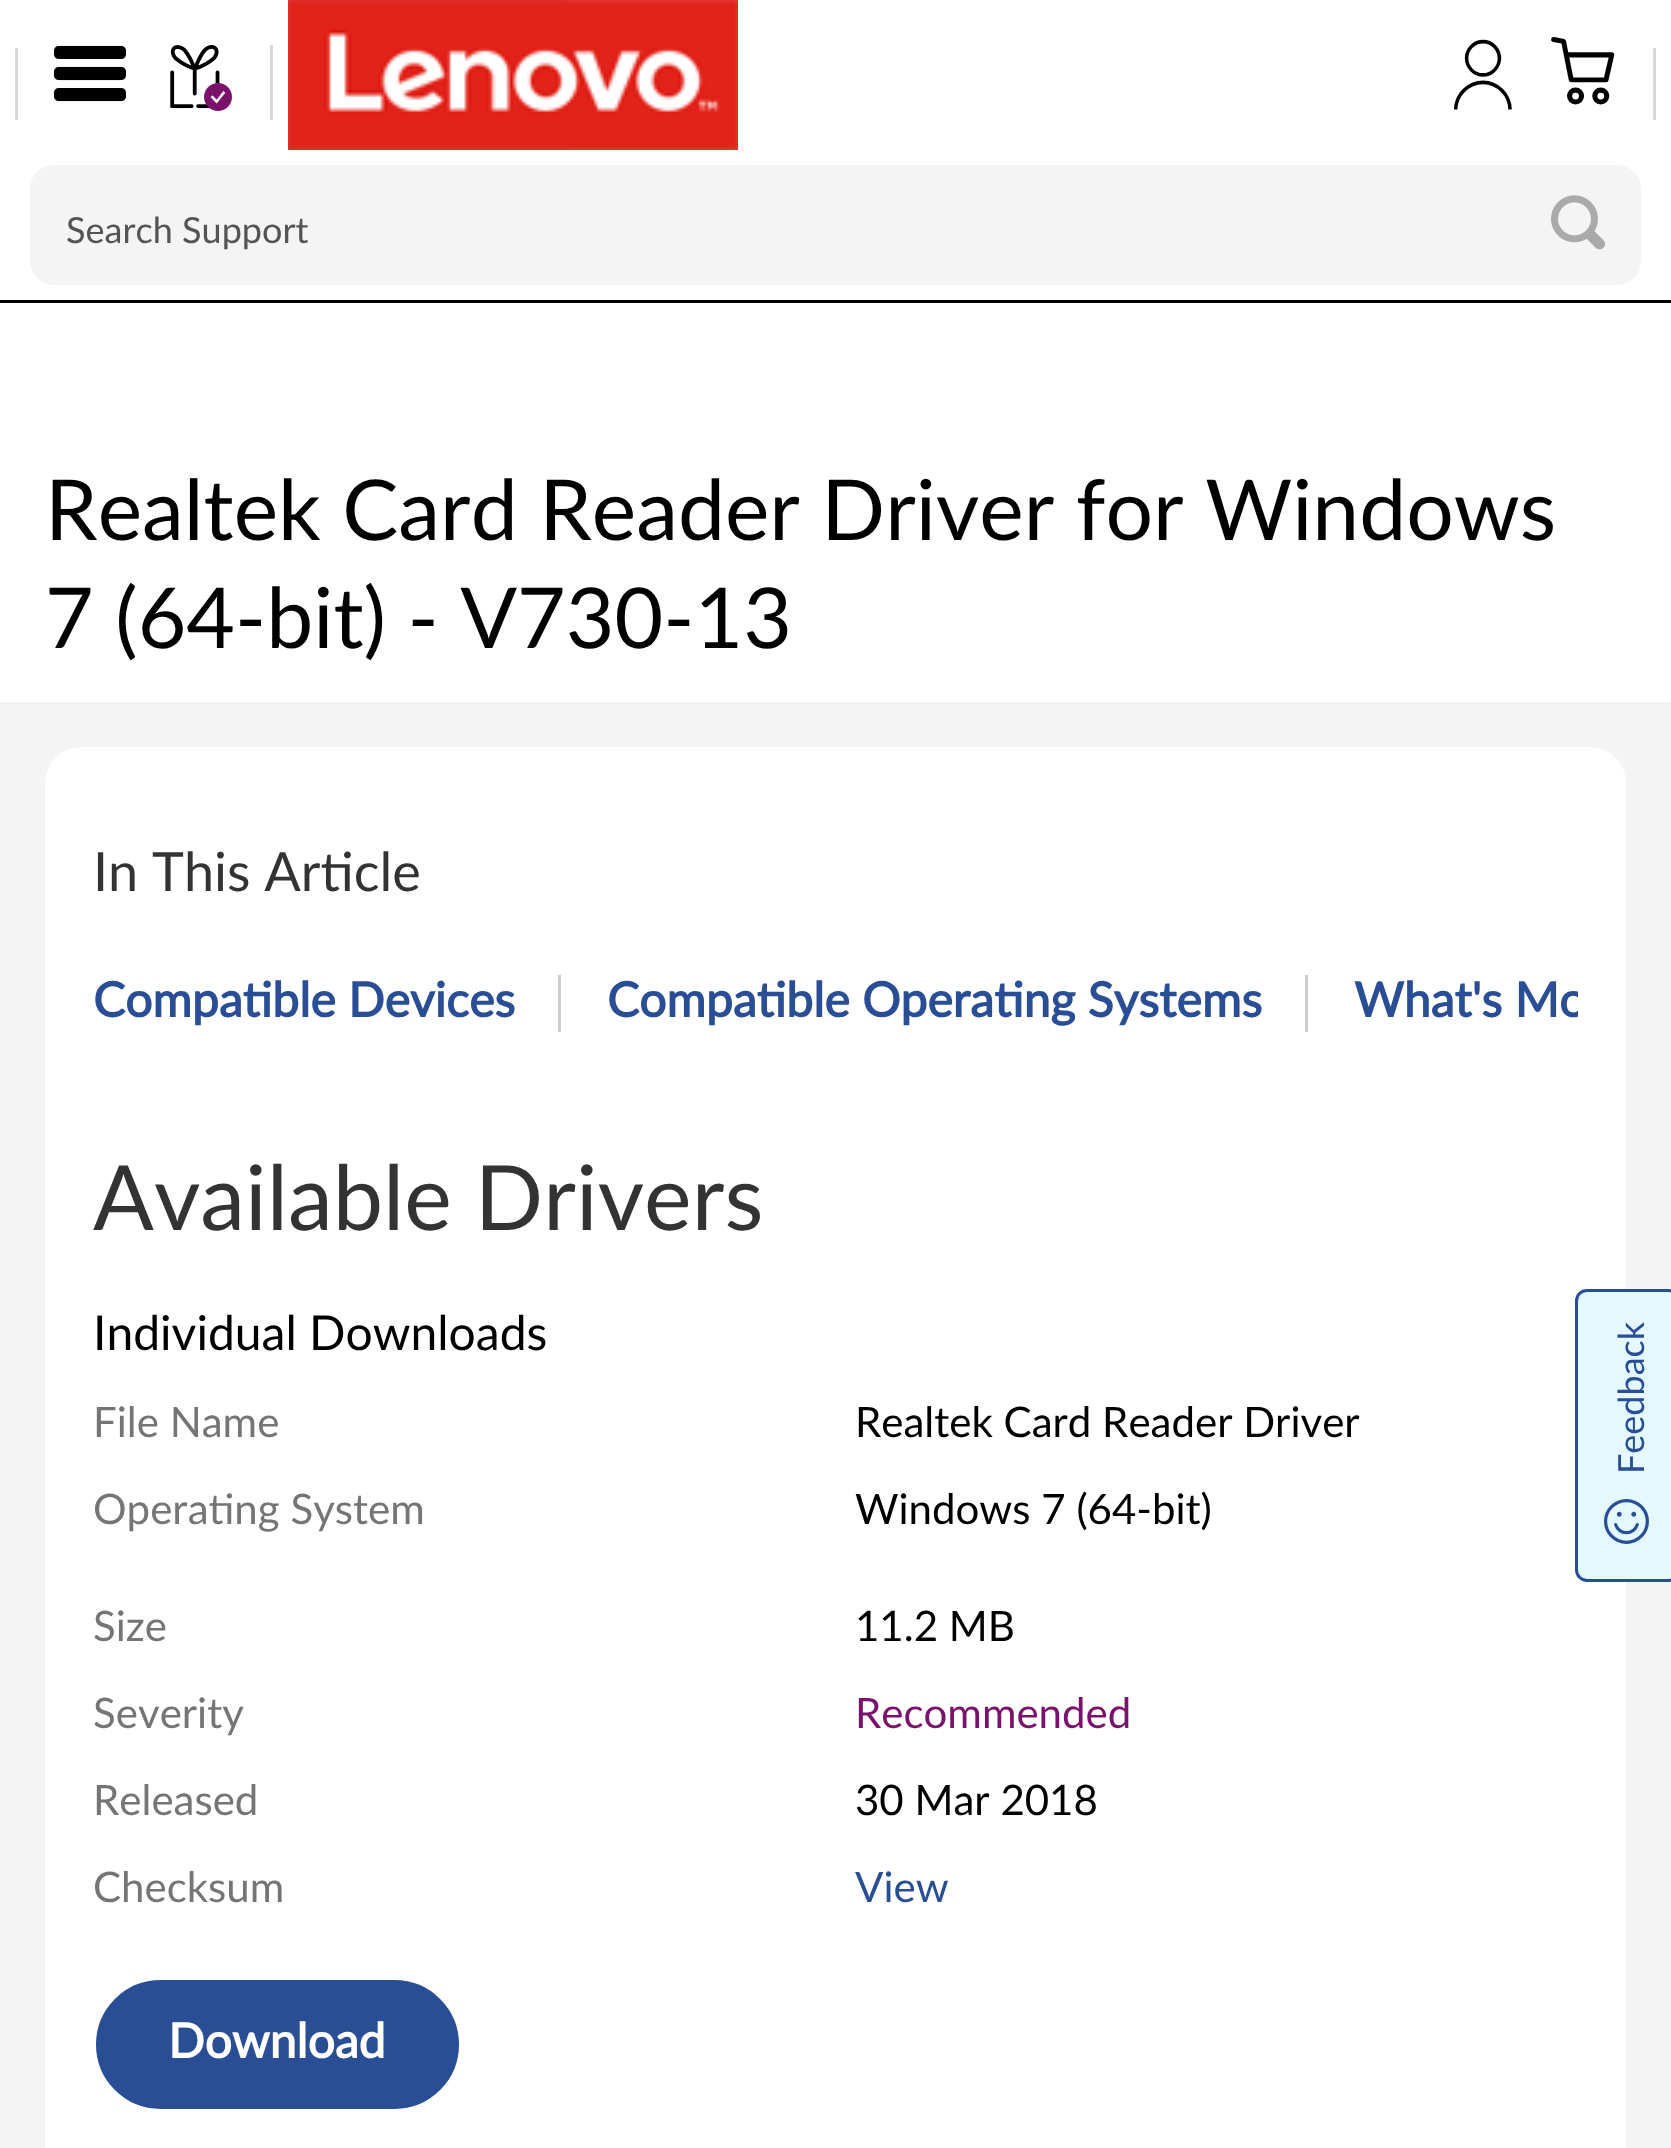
(async () => {
    const canvas = document.querySelector("canvas");
    canvas.width = 1671;
    canvas.height = 2148;
    const context = canvas.getContext("2d");
    context.miterLimit = 4;
    context.fontKerning = "none";
    function write(s, x, y, font, color) {
        context.font = font;
        context.fillStyle = color;
        context.fillText(s, x, y);
    }
    function block(x, y, w, h, color) {
        context.fillStyle = color;
        context.fillRect(x, y, w, h);
    }
    function card(x, y, w, h, r, color) {
        context.fillStyle = color;
        context.beginPath();
        context.roundRect(x, y, w, h, r);
        context.fill();
    }
    async function photo(src, x, y, w, h) {
        const img = new Image();
        img.src = src;
        await img.decode();
        context.drawImage(img, x, y, w, h);
    }

    block(0, 0, 1671, 2148, "rgb(255, 255, 255)");
    block(0, 300, 1671, 3, "rgb(0, 0, 0)");
    block(15, 48, 3, 72, "rgb(217, 216, 214)");
    await photo("media/1.png", 54, 45, 72, 57);
    block(270, 45, 3, 75, "rgb(217, 216, 214)");
    await photo("media/2.png", 170, 45, 62, 66);
    await photo("media/3.png", 288, 0, 450, 150);
    write("󡑆", 1447, 105, "72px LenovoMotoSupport", "rgb(0, 0, 0)");
    write("󡐑", 1549, 105, "72px LenovoMotoSupport", "rgb(0, 0, 0)");
    block(1653, 48, 3, 72, "rgb(217, 216, 214)");
    card(30, 165, 1611, 120, 24, "rgb(244, 244, 244)");
    write("Search Support", 66, 243, "36px Lato", "rgb(84, 84, 84)");
    await photo("media/4.png", 1551, 195, 54, 55);
    write("Realtek Card Reader Driver", 45, 540, "84px Lato", "rgb(0, 0, 0)");
    write("for Windows", 1076, 540, "84px Lato", "rgb(0, 0, 0)");
    write("7 (64-bit) - V730-13", 45, 648, "84px Lato", "rgb(0, 0, 0)");
    block(0, 702, 1671, 1446, "rgb(244, 244, 244)");
    card(45, 747, 1581, 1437, 36, "rgb(255, 255, 255)");
    write("In This Article", 93, 891, "54px Lato", "rgb(51, 51, 51)");
    block(558, 975, 3, 57, "rgb(204, 204, 204)");
    write("Compatible Devices", 93, 1017, "bold 48px Lato", "rgb(41, 78, 149)");
    block(1305, 975, 3, 57, "rgb(204, 204, 204)");
    write("Compatible Operating Systems", 607, 1017, "bold 48px Lato", "rgb(41, 78, 149)");
    context.save();
    context.beginPath();
    context.rect(93, 969, 1485, 66);
    context.clip();
    write("What's Mo", 1354, 1017, "bold 48px Lato", "rgb(41, 78, 149)");
    context.restore();
    write("Available Drivers", 93, 1230, "90px Lato", "rgb(51, 51, 51)");
    write("Individual Downloads", 93, 1350, "48px Lato", "rgb(0, 0, 0)");
    write("File Name", 93, 1437, "42px Lato", "rgb(117, 117, 117)");
    write("Realtek Card Reader Driver", 855, 1437, "42px Lato", "rgb(0, 0, 0)");
    write("Operating System", 93, 1524, "42px Lato", "rgb(117, 117, 117)");
    write("Windows 7 (64-bit)", 855, 1524, "42px Lato", "rgb(0, 0, 0)");
    write("Size", 93, 1641, "42px Lato", "rgb(117, 117, 117)");
    write("11.2 MB", 855, 1641, "42px Lato", "rgb(0, 0, 0)");
    write("Severity", 93, 1728, "42px Lato", "rgb(117, 117, 117)");
    write("Recommended", 855, 1728, "42px Lato", "rgb(122, 18, 107)");
    write("Released", 93, 1815, "42px Lato", "rgb(117, 117, 117)");
    write("30 Mar 2018", 855, 1815, "42px Lato", "rgb(0, 0, 0)");
    write("Checksum", 93, 1902, "42px Lato", "rgb(117, 117, 117)");
    write("View", 855, 1902, "42px Lato", "rgb(41, 78, 149)");
    context.beginPath();
    context.roundRect(94.5, 1978.5, 366, 132, 66);
    context.fill();
    context.strokeStyle = "rgb(255, 255, 255)";
    context.lineWidth = 3;
    context.stroke();
    write("Download", 168, 2058, "bold 48px Lato", "rgb(255, 255, 255)");
    context.fillStyle = "rgb(227, 249, 255)";
    context.beginPath();
    context.moveTo(1575, 1570);
    context.lineTo(1575, 1301);
    context.bezierCurveTo(1575, 1294, 1580, 1289, 1587, 1289);
    context.lineTo(1668, 1289);
    context.bezierCurveTo(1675, 1289, 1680, 1294, 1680, 1301);
    context.lineTo(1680, 1570);
    context.bezierCurveTo(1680, 1576, 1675, 1582, 1668, 1582);
    context.lineTo(1587, 1582);
    context.bezierCurveTo(1580, 1582, 1575, 1576, 1575, 1570);
    context.closePath();
    context.fill();
    context.beginPath();
    context.moveTo(1576.5, 1570);
    context.lineTo(1576.5, 1301);
    context.bezierCurveTo(1576.5, 1295, 1581, 1290.5, 1587, 1290.5);
    context.lineTo(1668, 1290.5);
    context.bezierCurveTo(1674, 1290.5, 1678.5, 1295, 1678.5, 1301);
    context.lineTo(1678.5, 1570);
    context.bezierCurveTo(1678.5, 1575.5, 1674, 1580.5, 1668, 1580.5);
    context.lineTo(1587, 1580.5);
    context.bezierCurveTo(1581, 1580.5, 1576.5, 1575.5, 1576.5, 1570);
    context.closePath();
    context.strokeStyle = "rgb(41, 78, 149)";
    context.stroke();
    context.font = "36px Lato";
    context.fillStyle = "rgb(41, 78, 149)";
    context.save();
    context.translate(1644, 1474);
    context.rotate(-90 * Math.PI / 180);
    context.fillText("Feedback", 0, 0);
    context.restore();
    write("󡉵", 1604, 1544, "48px LenovoMotoSupport", "rgb(41, 78, 149)");
})();
